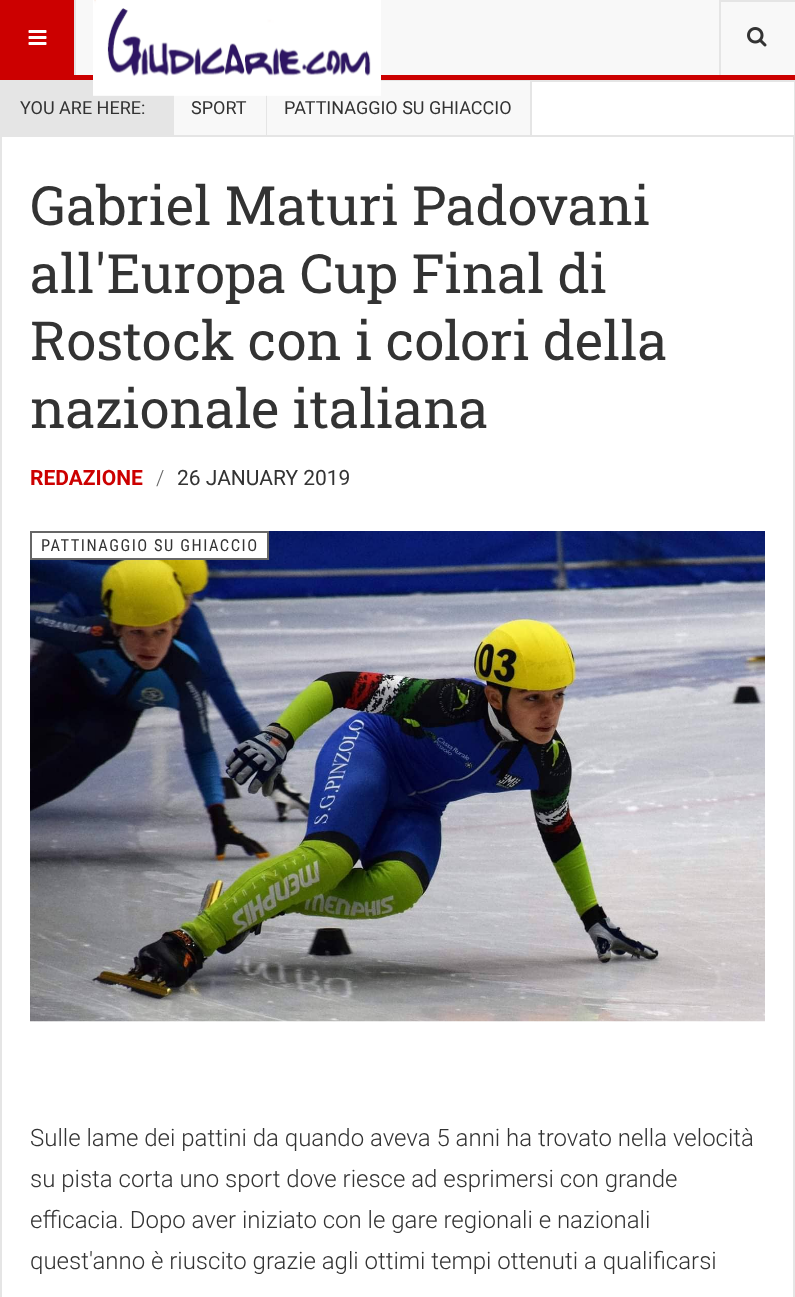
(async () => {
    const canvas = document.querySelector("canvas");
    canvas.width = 795;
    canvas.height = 1297;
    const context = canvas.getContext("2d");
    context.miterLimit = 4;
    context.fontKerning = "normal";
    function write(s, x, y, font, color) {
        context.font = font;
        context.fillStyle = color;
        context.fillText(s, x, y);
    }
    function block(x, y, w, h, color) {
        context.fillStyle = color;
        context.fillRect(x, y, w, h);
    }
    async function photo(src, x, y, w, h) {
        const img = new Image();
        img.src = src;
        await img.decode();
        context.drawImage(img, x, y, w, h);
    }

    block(0, 0, 795, 1297, "rgb(255, 255, 255)");
    block(76, 0, 719, 75, "rgb(248, 248, 248)");
    block(0, 75, 795, 5, "rgb(204, 0, 0)");
    block(0, 0, 74, 75, "rgb(204, 0, 0)");
    block(74, 0, 2, 75, "rgb(229, 229, 229)");
    await photo("media/1.png", 28, 30, 19, 15);
    block(0, 80, 795, 2, "rgb(229, 229, 229)");
    block(2, 82, 171, 53, "rgb(229, 229, 229)");
    block(173, 95, 1, 40, "rgb(229, 229, 229)");
    block(174, 95, 92, 40, "rgb(248, 248, 248)");
    block(266, 95, 1, 40, "rgb(229, 229, 229)");
    block(267, 81, 263, 54, "rgb(248, 248, 248)");
    await photo("media/2.png", 93, 0, 288, 96);
    block(720, 0, 75, 2, "rgb(229, 229, 229)");
    block(719, 0, 2, 75, "rgb(229, 229, 229)");
    await photo("media/3.png", 747, 27, 20, 20);
    block(794, 80, 1, 55, "rgb(229, 229, 229)");
    block(0, 80, 2, 55, "rgb(229, 229, 229)");
    write("YOU ARE HERE:", 20, 114, "18px Roboto", "rgb(51, 51, 51)");
    write("SPORT", 191, 114, "18px Roboto", "rgb(51, 51, 51)");
    block(530, 81, 2, 54, "rgb(229, 229, 229)");
    write("PATTINAGGIO SU GHIACCIO", 284, 114, "18px Roboto", "rgb(51, 51, 51)");
    context.strokeStyle = "rgb(229, 229, 229)";
    context.lineWidth = 2;
    context.strokeRect(1, 136, 793, 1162);
    write("Gabriel Maturi Padovani", 30, 225, "54px Roboto Slab", "rgb(51, 51, 51)");
    write("all'Europa Cup Final di", 30, 293, "54px Roboto Slab", "rgb(51, 51, 51)");
    write("Rostock con i colori della", 30, 360, "54px Roboto Slab", "rgb(51, 51, 51)");
    write("nazionale italiana", 30, 428, "54px Roboto Slab", "rgb(51, 51, 51)");
    write("REDAZIONE", 30, 485, "bold 21px Roboto", "rgb(204, 0, 0)");
    write("/", 156, 485, "300 21px Roboto", "rgb(102, 102, 102)");
    write("26 JANUARY 2019", 177, 485, "21px Roboto", "rgb(51, 51, 51)");
    await photo("media/4.png", 30, 531, 735, 491);
    context.fillStyle = "rgb(255, 255, 255)";
    context.beginPath();
    context.rect(31, 532, 237, 27);
    context.fill();
    context.strokeStyle = "rgb(102, 102, 102)";
    context.stroke();
    context.letterSpacing = "1.5px";
    write("PATTINAGGIO SU GHIACCIO", 41, 551, "16.5px Roboto Condensed", "rgb(51, 51, 51)");
    context.letterSpacing = "0px";
    write("Sulle lame dei pattini da quando aveva 5 anni ha trovato nella velocità", 30, 1146, "300 24px Roboto", "rgb(51, 51, 51)");
    write("su pista corta uno sport dove riesce ad esprimersi con grande", 30, 1187, "300 24px Roboto", "rgb(51, 51, 51)");
    write("efficacia. Dopo aver iniziato con le gare regionali e nazionali", 30, 1228, "300 24px Roboto", "rgb(51, 51, 51)");
    write("quest'anno è riuscito grazie agli ottimi tempi ottenuti a qualificarsi", 30, 1269, "300 24px Roboto", "rgb(51, 51, 51)");
})();
